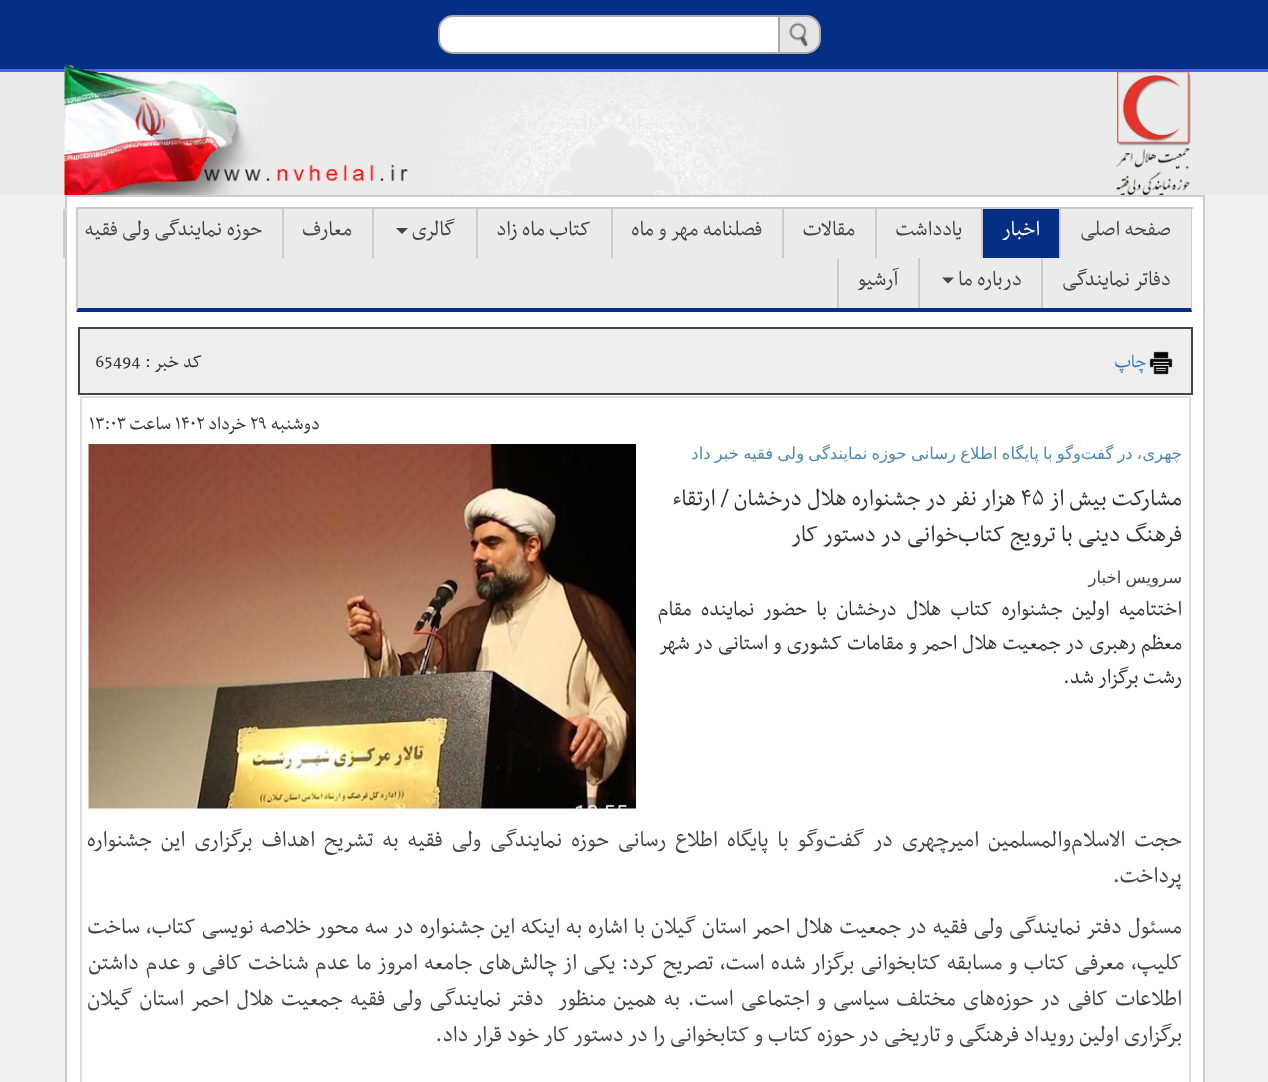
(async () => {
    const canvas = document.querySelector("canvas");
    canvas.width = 1268;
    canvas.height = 1082;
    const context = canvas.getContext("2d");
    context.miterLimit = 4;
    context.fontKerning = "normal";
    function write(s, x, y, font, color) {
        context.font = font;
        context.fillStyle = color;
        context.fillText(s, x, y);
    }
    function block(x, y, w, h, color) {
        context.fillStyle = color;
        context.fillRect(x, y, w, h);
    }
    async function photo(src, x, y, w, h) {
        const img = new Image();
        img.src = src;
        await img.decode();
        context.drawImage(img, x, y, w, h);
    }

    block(0, 0, 1268, 1082, "rgb(235, 235, 235)");
    block(0, 0, 1268, 69, "rgb(5, 47, 132)");
    block(0, 69, 1268, 3, "rgb(67, 102, 232)");
    context.fillStyle = "rgb(229, 229, 229)";
    context.beginPath();
    context.roundRect(778, 16, 42, 37, [0, 14, 14, 0]);
    context.fill();
    context.strokeStyle = "rgb(170, 170, 170)";
    context.lineWidth = 2;
    context.stroke();
    context.fillStyle = "rgb(255, 255, 255)";
    context.beginPath();
    context.roundRect(439, 16, 340, 37, [14, 0, 0, 14]);
    context.fill();
    context.stroke();
    await photo("media/1.png", 789, 21, 20, 26);
    await photo("media/2.png", 64, 64, 1127, 131);
    block(0, 195, 1268, 887, "rgb(241, 241, 241)");
    context.fillStyle = "rgb(255, 255, 255)";
    context.beginPath();
    context.rect(66, 196, 1138, 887);
    context.fill();
    context.strokeStyle = "rgb(204, 204, 204)";
    context.stroke();
    block(78, 209, 1113, 99, "rgb(235, 235, 235)");
    block(77, 207, 1116, 2, "rgb(204, 204, 204)");
    context.beginPath();
    context.moveTo(1192, 207);
    context.lineTo(1192, 312);
    context.lineTo(1191, 308);
    context.lineTo(1191, 208);
    context.closePath();
    context.fill();
    context.fillStyle = "rgb(5, 47, 132)";
    context.beginPath();
    context.moveTo(1192, 312);
    context.lineTo(76, 312);
    context.lineTo(78, 308);
    context.lineTo(1191, 308);
    context.closePath();
    context.fill();
    context.fillStyle = "rgb(204, 204, 204)";
    context.beginPath();
    context.moveTo(76, 312);
    context.lineTo(76, 207);
    context.lineTo(78, 208);
    context.lineTo(78, 308);
    context.closePath();
    context.fill();
    block(1059, 209, 2, 49, "rgb(204, 204, 204)");
    context.direction = "rtl";
    write("صفحه اصلی", 1171, 235, "24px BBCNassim", "rgb(68, 68, 68)");
    block(983, 209, 76, 49, "rgb(5, 47, 132)");
    block(981, 209, 2, 49, "rgb(204, 204, 204)");
    write("اخبار", 1040, 235, "24px BBCNassim", "rgb(255, 255, 255)");
    block(875, 209, 2, 49, "rgb(204, 204, 204)");
    write("یادداشت", 962, 235, "24px BBCNassim", "rgb(68, 68, 68)");
    block(782, 209, 2, 49, "rgb(204, 204, 204)");
    write("مقالات", 855, 235, "24px BBCNassim", "rgb(68, 68, 68)");
    block(611, 209, 2, 49, "rgb(204, 204, 204)");
    write("فصلنامه مهر و ماه", 762, 235, "24px BBCNassim", "rgb(68, 68, 68)");
    block(476, 209, 2, 49, "rgb(204, 204, 204)");
    write("کتاب ماه زاد", 591, 235, "24px BBCNassim", "rgb(68, 68, 68)");
    block(372, 209, 2, 49, "rgb(204, 204, 204)");
    write("گالری", 455, 235, "24px BBCNassim", "rgb(68, 68, 68)");
    context.beginPath();
    context.moveTo(396, 228);
    context.lineTo(408, 228);
    context.lineTo(402, 234);
    context.closePath();
    context.fill();
    block(282, 209, 2, 49, "rgb(204, 204, 204)");
    write("معارف", 352, 235, "24px BBCNassim", "rgb(68, 68, 68)");
    block(63, 209, 2, 49, "rgb(204, 204, 204)");
    write("حوزه نمایندگی ولی فقیه", 262, 235, "24px BBCNassim", "rgb(68, 68, 68)");
    block(1041, 258, 2, 50, "rgb(204, 204, 204)");
    write("دفاتر نمایندگی", 1171, 285, "24px BBCNassim", "rgb(68, 68, 68)");
    block(918, 258, 2, 50, "rgb(204, 204, 204)");
    write("درباره ما", 1022, 285, "24px BBCNassim", "rgb(68, 68, 68)");
    context.beginPath();
    context.moveTo(942, 277.5);
    context.lineTo(954, 277.5);
    context.lineTo(948, 283.5);
    context.closePath();
    context.fill();
    block(837, 258, 2, 50, "rgb(204, 204, 204)");
    write("آرشیو", 898, 285, "24px BBCNassim", "rgb(68, 68, 68)");
    context.fillStyle = "rgb(238, 238, 238)";
    context.beginPath();
    context.rect(79, 328, 1113, 66);
    context.fill();
    context.strokeStyle = "rgb(68, 68, 68)";
    context.stroke();
    await photo("media/3.png", 1149, 351, 24, 24);
    write("چاپ", 1146, 367, "21px BBCNassim", "rgb(51, 122, 183)");
    write("کد خبر :", 202, 367, "21px BBCNassim", "rgb(51, 51, 51)");
    context.direction = "ltr";
    write("65494", 95, 367, "21px BBCNassim", "rgb(51, 51, 51)");
    context.strokeStyle = "rgb(221, 221, 221)";
    context.strokeRect(81, 397, 1109, 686);
    context.direction = "rtl";
    write("دوشنبه", 320, 429, "21px BBCNassim", "rgb(51, 51, 51)");
    context.direction = "ltr";
    write("۲۹", 250, 429, "21px BBCNassim", "rgb(51, 51, 51)");
    context.direction = "rtl";
    write("خرداد", 246, 429, "21px BBCNassim", "rgb(51, 51, 51)");
    context.direction = "ltr";
    write("۱۴۰۲", 175, 429, "21px BBCNassim", "rgb(51, 51, 51)");
    context.direction = "rtl";
    write("ساعت", 171, 429, "21px BBCNassim", "rgb(51, 51, 51)");
    context.direction = "ltr";
    write("۱۳:۰۳", 89, 429, "21px BBCNassim", "rgb(51, 51, 51)");
    await photo("media/4.png", 88, 444, 548, 365);
    context.wordSpacing = "-1.1px";
    context.direction = "rtl";
    write("وگو با پایگاه اطلاع رسانی حوزه نمایندگی ولی فقیه خبر داد", 1081, 459, "16.5px DejaVu Sans", "rgb(78, 135, 178)");
    write("چهری، در گفت", 1182, 459, "16.5px DejaVu Sans", "rgb(78, 135, 178)");
    context.wordSpacing = "0px";
    write("مشارکت بیش از", 1182, 505, "27px BBCNassim", "rgb(51, 51, 51)");
    context.direction = "ltr";
    write("۴۵", 1021, 505, "27px BBCNassim", "rgb(51, 51, 51)");
    context.direction = "rtl";
    write("هزار نفر در جشنواره هلال درخشان / ارتقاء", 1016, 505, "27px BBCNassim", "rgb(51, 51, 51)");
    write("فرهنگ دینی با ترویج کتاب‌خوانی در دستور کار", 1182, 541, "27px BBCNassim", "rgb(51, 51, 51)");
    context.wordSpacing = "-1.1px";
    write("سرویس اخبار", 1182, 583, "16.5px DejaVu Sans", "rgb(68, 68, 68)");
    context.wordSpacing = "4.75px";
    write("اختتامیه اولین جشنواره کتاب هلال درخشان با حضور نماینده مقام", 1182, 615, "24px BBCNassim", "rgb(51, 51, 51)");
    context.wordSpacing = "0.5px";
    write("معظم رهبری در جمعیت هلال احمر و مقامات کشوری و استانی در شهر", 1182, 649, "24px BBCNassim", "rgb(51, 51, 51)");
    context.wordSpacing = "0px";
    write("رشت برگزار شد.", 1182, 683, "24px BBCNassim", "rgb(51, 51, 51)");
    context.wordSpacing = "4.25px";
    write("حجت الاسلام‌والمسلمین امیرچهری در گفت‌وگو با پایگاه اطلاع رسانی حوزه نمایندگی ولی فقیه به تشریح اهداف برگزاری این جشنواره", 1182, 846, "25.5px BBCNassim", "rgb(68, 68, 68)");
    context.wordSpacing = "0px";
    write("پرداخت.", 1182, 882, "25.5px BBCNassim", "rgb(68, 68, 68)");
    context.wordSpacing = "1.1px";
    write("مسئول دفتر نمایندگی ولی فقیه در جمعیت هلال احمر استان گیلان با اشاره به اینکه این جشنواره در سه محور خلاصه نویسی کتاب، ساخت", 1182, 933, "25.5px BBCNassim", "rgb(68, 68, 68)");
    context.wordSpacing = "1.55px";
    write("کلیپ، معرفی کتاب و مسابقه کتابخوانی برگزار شده است، تصریح کرد: یکی از چالش‌های جامعه امروز ما عدم شناخت کافی و عدم داشتن", 1182, 969, "25.5px BBCNassim", "rgb(68, 68, 68)");
    context.wordSpacing = "2.5px";
    write("اطلاعات کافی در حوزه‌های مختلف سیاسی و اجتماعی است. به همین منظور  دفتر نمایندگی ولی فقیه جمعیت هلال احمر استان گیلان", 1182, 1005, "25.5px BBCNassim", "rgb(68, 68, 68)");
    context.wordSpacing = "0px";
    write("برگزاری اولین رویداد فرهنگی و تاریخی در حوزه کتاب و کتابخوانی را در دستور کار خود قرار داد.", 1182, 1041, "25.5px BBCNassim", "rgb(68, 68, 68)");
})();
